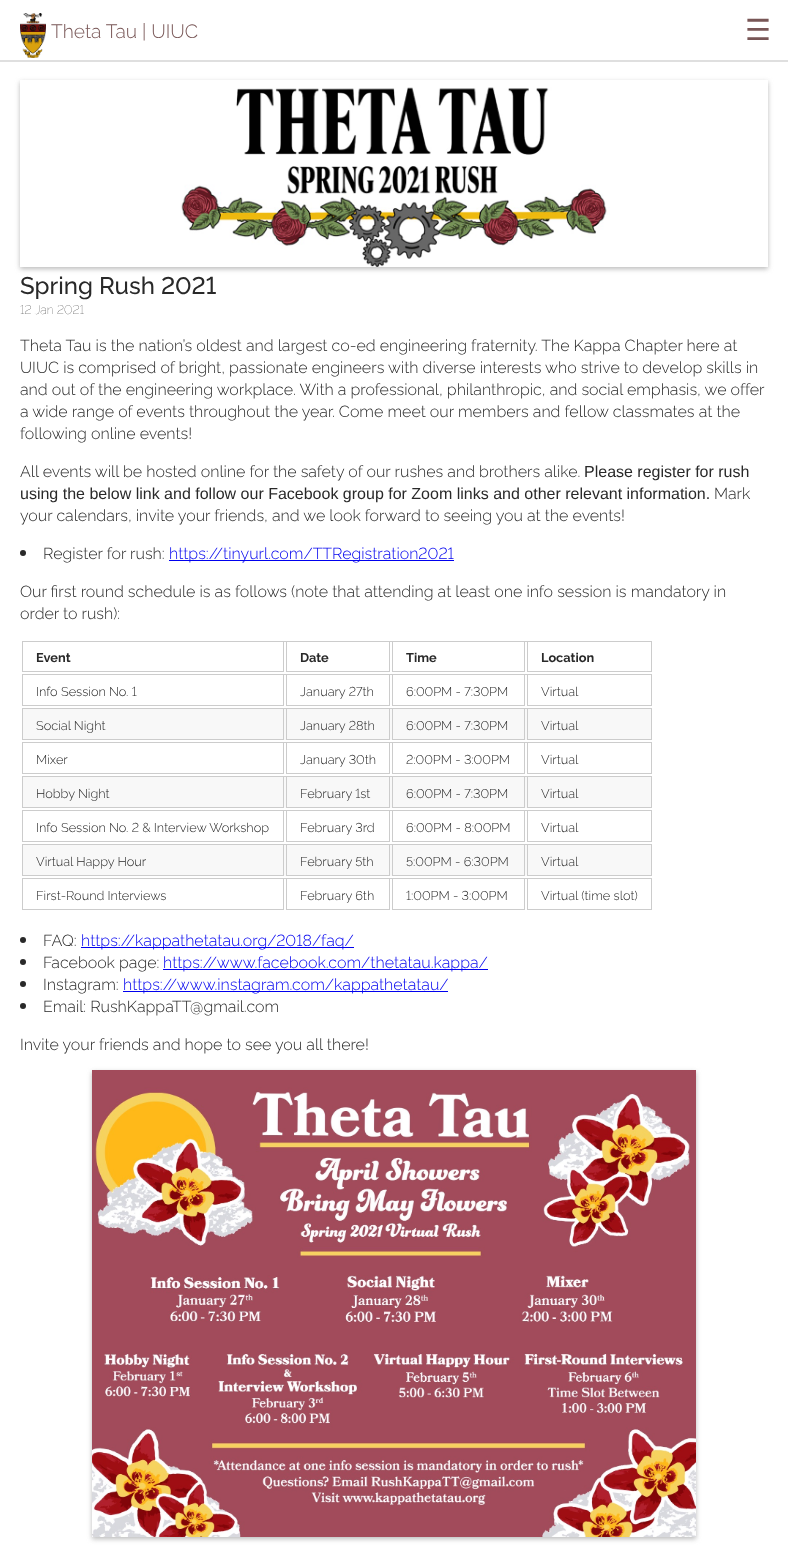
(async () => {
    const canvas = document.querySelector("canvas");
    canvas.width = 788;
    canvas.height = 1567;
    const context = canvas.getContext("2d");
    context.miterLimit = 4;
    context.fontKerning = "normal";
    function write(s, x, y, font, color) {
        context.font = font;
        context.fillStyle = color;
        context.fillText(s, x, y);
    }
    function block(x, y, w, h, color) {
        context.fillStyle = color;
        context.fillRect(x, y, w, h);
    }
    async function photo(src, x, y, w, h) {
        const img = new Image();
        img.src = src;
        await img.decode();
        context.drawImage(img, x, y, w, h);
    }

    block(0, 0, 788, 1567, "rgb(255, 255, 255)");
    block(0, 60, 788, 2, "rgb(223, 223, 223)");
    await photo("media/1.png", 20, 13, 26, 45);
    write("Theta Tau | UIUC", 51, 38, "300 19.25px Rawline", "rgb(120, 86, 86)");
    write("☰", 745, 40, "29px DejaVu Sans", "rgb(120, 86, 86)");
    context.save();
    context.beginPath();
    context.moveTo(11, 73);
    context.lineTo(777, 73);
    context.lineTo(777, 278);
    context.lineTo(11, 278);
    context.closePath();
    context.moveTo(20, 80);
    context.lineTo(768, 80);
    context.lineTo(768, 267);
    context.lineTo(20, 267);
    context.closePath();
    context.clip("evenodd");
    context.fillStyle = "rgb(187, 187, 187)";
    context.filter = "blur(2.5px)";
    context.beginPath();
    context.rect(20, 82, 748, 187);
    context.fill();
    context.filter = "none";
    context.restore();
    await photo("media/2.png", 180, 87, 430, 180);
    write("Spring Rush 2021", 20, 294, "500 24px Rawline", "rgb(41, 41, 41)");
    write("12 Jan 2021", 20, 314, "100 12.5px Rawline", "rgb(41, 41, 41)");
    write("Theta Tau is the nation’s oldest and largest co-ed engineering fraternity. The Kappa Chapter here at", 20, 351, "300 16px Rawline", "rgb(41, 41, 41)");
    write("UIUC is comprised of bright, passionate engineers with diverse interests who strive to develop skills in", 20, 373, "300 16px Rawline", "rgb(41, 41, 41)");
    write("and out of the engineering workplace. With a professional, philanthropic, and social emphasis, we offer", 20, 395, "300 16px Rawline", "rgb(41, 41, 41)");
    write("a wide range of events throughout the year. Come meet our members and fellow classmates at the", 20, 417, "300 16px Rawline", "rgb(41, 41, 41)");
    write("following online events!", 20, 439, "300 16px Rawline", "rgb(41, 41, 41)");
    write("All events will be hosted online for the safety of our rushes and brothers alike.", 20, 477, "300 16px Rawline", "rgb(41, 41, 41)");
    write("Please register for rush", 584, 477, "16px Liberation Sans", "rgb(41, 41, 41)");
    write("using the below link and follow our Facebook group for Zoom links and other relevant information.", 20, 499, "16px Liberation Sans", "rgb(41, 41, 41)");
    write("Mark", 714, 499, "300 16px Rawline", "rgb(41, 41, 41)");
    write("your calendars, invite your friends, and we look forward to seeing you at the events!", 20, 521, "300 16px Rawline", "rgb(41, 41, 41)");
    context.beginPath();
    context.arc(23, 553, 3, 0, Math.PI * 2);
    context.fill();
    write("Register for rush:", 43, 559, "300 16px Rawline", "rgb(41, 41, 41)");
    block(169, 560, 285, 1, "rgb(0, 0, 238)");
    write("https://tinyurl.com/TTRegistration2021", 169, 559, "300 16px Rawline", "rgb(0, 0, 238)");
    write("Our first round schedule is as follows (note that attending at least one info session is mandatory in", 20, 597, "300 16px Rawline", "rgb(41, 41, 41)");
    write("order to rush):", 20, 619, "300 16px Rawline", "rgb(41, 41, 41)");
    block(284, 641, 243, 1, "rgb(204, 204, 204)");
    context.strokeStyle = "rgb(204, 204, 204)";
    context.strokeRect(22.5, 641.5, 261, 30);
    write("Event", 36, 662, "bold 12.75px Rawline", "rgb(41, 41, 41)");
    context.strokeRect(286.5, 641.5, 103, 30);
    write("Date", 300, 662, "bold 12.75px Rawline", "rgb(41, 41, 41)");
    context.strokeRect(392.5, 641.5, 132, 30);
    write("Time", 406, 662, "bold 12.75px Rawline", "rgb(41, 41, 41)");
    context.strokeRect(527.5, 641.5, 124, 30);
    write("Location", 541, 662, "bold 12.75px Rawline", "rgb(41, 41, 41)");
    block(284, 674, 243, 1, "rgb(204, 204, 204)");
    context.strokeRect(22.5, 674.5, 261, 31);
    write("Info Session No. 1", 36, 696, "300 12.75px Rawline", "rgb(41, 41, 41)");
    context.strokeRect(286.5, 674.5, 103, 31);
    write("January 27th", 300, 696, "300 12.75px Rawline", "rgb(41, 41, 41)");
    context.strokeRect(392.5, 674.5, 132, 31);
    write("6:00PM - 7:30PM", 406, 696, "300 12.75px Rawline", "rgb(41, 41, 41)");
    context.strokeRect(527.5, 674.5, 124, 31);
    write("Virtual", 541, 696, "300 12.75px Rawline", "rgb(41, 41, 41)");
    block(23, 709, 628, 31, "rgb(248, 248, 248)");
    block(284, 708, 243, 1, "rgb(204, 204, 204)");
    context.strokeRect(22.5, 708.5, 261, 31);
    write("Social Night", 36, 730, "300 12.75px Rawline", "rgb(41, 41, 41)");
    context.strokeRect(286.5, 708.5, 103, 31);
    write("January 28th", 300, 730, "300 12.75px Rawline", "rgb(41, 41, 41)");
    context.strokeRect(392.5, 708.5, 132, 31);
    write("6:00PM - 7:30PM", 406, 730, "300 12.75px Rawline", "rgb(41, 41, 41)");
    context.strokeRect(527.5, 708.5, 124, 31);
    write("Virtual", 541, 730, "300 12.75px Rawline", "rgb(41, 41, 41)");
    block(284, 742, 243, 1, "rgb(204, 204, 204)");
    context.strokeRect(22.5, 742.5, 261, 31);
    write("Mixer", 36, 764, "300 12.75px Rawline", "rgb(41, 41, 41)");
    context.strokeRect(286.5, 742.5, 103, 31);
    write("January 30th", 300, 764, "300 12.75px Rawline", "rgb(41, 41, 41)");
    context.strokeRect(392.5, 742.5, 132, 31);
    write("2:00PM - 3:00PM", 406, 764, "300 12.75px Rawline", "rgb(41, 41, 41)");
    context.strokeRect(527.5, 742.5, 124, 31);
    write("Virtual", 541, 764, "300 12.75px Rawline", "rgb(41, 41, 41)");
    block(23, 777, 628, 31, "rgb(248, 248, 248)");
    block(284, 776, 243, 1, "rgb(204, 204, 204)");
    context.strokeRect(22.5, 776.5, 261, 31);
    write("Hobby Night", 36, 798, "300 12.75px Rawline", "rgb(41, 41, 41)");
    context.strokeRect(286.5, 776.5, 103, 31);
    write("February 1st", 300, 798, "300 12.75px Rawline", "rgb(41, 41, 41)");
    context.strokeRect(392.5, 776.5, 132, 31);
    write("6:00PM - 7:30PM", 406, 798, "300 12.75px Rawline", "rgb(41, 41, 41)");
    context.strokeRect(527.5, 776.5, 124, 31);
    write("Virtual", 541, 798, "300 12.75px Rawline", "rgb(41, 41, 41)");
    block(284, 810, 243, 1, "rgb(204, 204, 204)");
    context.strokeRect(22.5, 810.5, 261, 31);
    write("Info Session No. 2 & Interview Workshop", 36, 832, "300 12.75px Rawline", "rgb(41, 41, 41)");
    context.strokeRect(286.5, 810.5, 103, 31);
    write("February 3rd", 300, 832, "300 12.75px Rawline", "rgb(41, 41, 41)");
    context.strokeRect(392.5, 810.5, 132, 31);
    write("6:00PM - 8:00PM", 406, 832, "300 12.75px Rawline", "rgb(41, 41, 41)");
    context.strokeRect(527.5, 810.5, 124, 31);
    write("Virtual", 541, 832, "300 12.75px Rawline", "rgb(41, 41, 41)");
    block(23, 845, 628, 31, "rgb(248, 248, 248)");
    block(284, 844, 243, 1, "rgb(204, 204, 204)");
    context.strokeRect(22.5, 844.5, 261, 31);
    write("Virtual Happy Hour", 36, 866, "300 12.75px Rawline", "rgb(41, 41, 41)");
    context.strokeRect(286.5, 844.5, 103, 31);
    write("February 5th", 300, 866, "300 12.75px Rawline", "rgb(41, 41, 41)");
    context.strokeRect(392.5, 844.5, 132, 31);
    write("5:00PM - 6:30PM", 406, 866, "300 12.75px Rawline", "rgb(41, 41, 41)");
    context.strokeRect(527.5, 844.5, 124, 31);
    write("Virtual", 541, 866, "300 12.75px Rawline", "rgb(41, 41, 41)");
    block(284, 878, 243, 1, "rgb(204, 204, 204)");
    context.strokeRect(22.5, 878.5, 261, 31);
    write("First-Round Interviews", 36, 900, "300 12.75px Rawline", "rgb(41, 41, 41)");
    context.strokeRect(286.5, 878.5, 103, 31);
    write("February 6th", 300, 900, "300 12.75px Rawline", "rgb(41, 41, 41)");
    context.strokeRect(392.5, 878.5, 132, 31);
    write("1:00PM - 3:00PM", 406, 900, "300 12.75px Rawline", "rgb(41, 41, 41)");
    context.strokeRect(527.5, 878.5, 124, 31);
    write("Virtual (time slot)", 541, 900, "300 12.75px Rawline", "rgb(41, 41, 41)");
    context.beginPath();
    context.arc(23, 940, 3, 0, Math.PI * 2);
    context.fill();
    write("FAQ:", 43, 946, "300 16px Rawline", "rgb(41, 41, 41)");
    block(81, 947, 273, 1, "rgb(0, 0, 238)");
    write("https://kappathetatau.org/2018/faq/", 81, 946, "300 16px Rawline", "rgb(0, 0, 238)");
    context.fillStyle = "rgb(41, 41, 41)";
    context.beginPath();
    context.arc(23, 962, 3, 0, Math.PI * 2);
    context.fill();
    write("Facebook page:", 43, 968, "300 16px Rawline", "rgb(41, 41, 41)");
    block(163, 969, 325, 1, "rgb(0, 0, 238)");
    write("https://www.facebook.com/thetatau.kappa/", 163, 968, "300 16px Rawline", "rgb(0, 0, 238)");
    context.fillStyle = "rgb(41, 41, 41)";
    context.beginPath();
    context.arc(23, 984, 3, 0, Math.PI * 2);
    context.fill();
    write("Instagram:", 43, 990, "300 16px Rawline", "rgb(41, 41, 41)");
    block(123, 991, 325, 1, "rgb(0, 0, 238)");
    write("https://www.instagram.com/kappathetatau/", 123, 990, "300 16px Rawline", "rgb(0, 0, 238)");
    context.fillStyle = "rgb(41, 41, 41)";
    context.beginPath();
    context.arc(23, 1006, 3, 0, Math.PI * 2);
    context.fill();
    write("Email: RushKappaTT@gmail.com", 43, 1012, "300 16px Rawline", "rgb(41, 41, 41)");
    write("Invite your friends and hope to see you all there!", 20, 1050, "300 16px Rawline", "rgb(41, 41, 41)");
    context.fillStyle = "rgb(187, 187, 187)";
    context.filter = "blur(2.5px)";
    context.beginPath();
    context.rect(92, 1072, 604, 467);
    context.fill();
    context.filter = "none";
    await photo("media/3.png", 92, 1070, 604, 467);
})();
